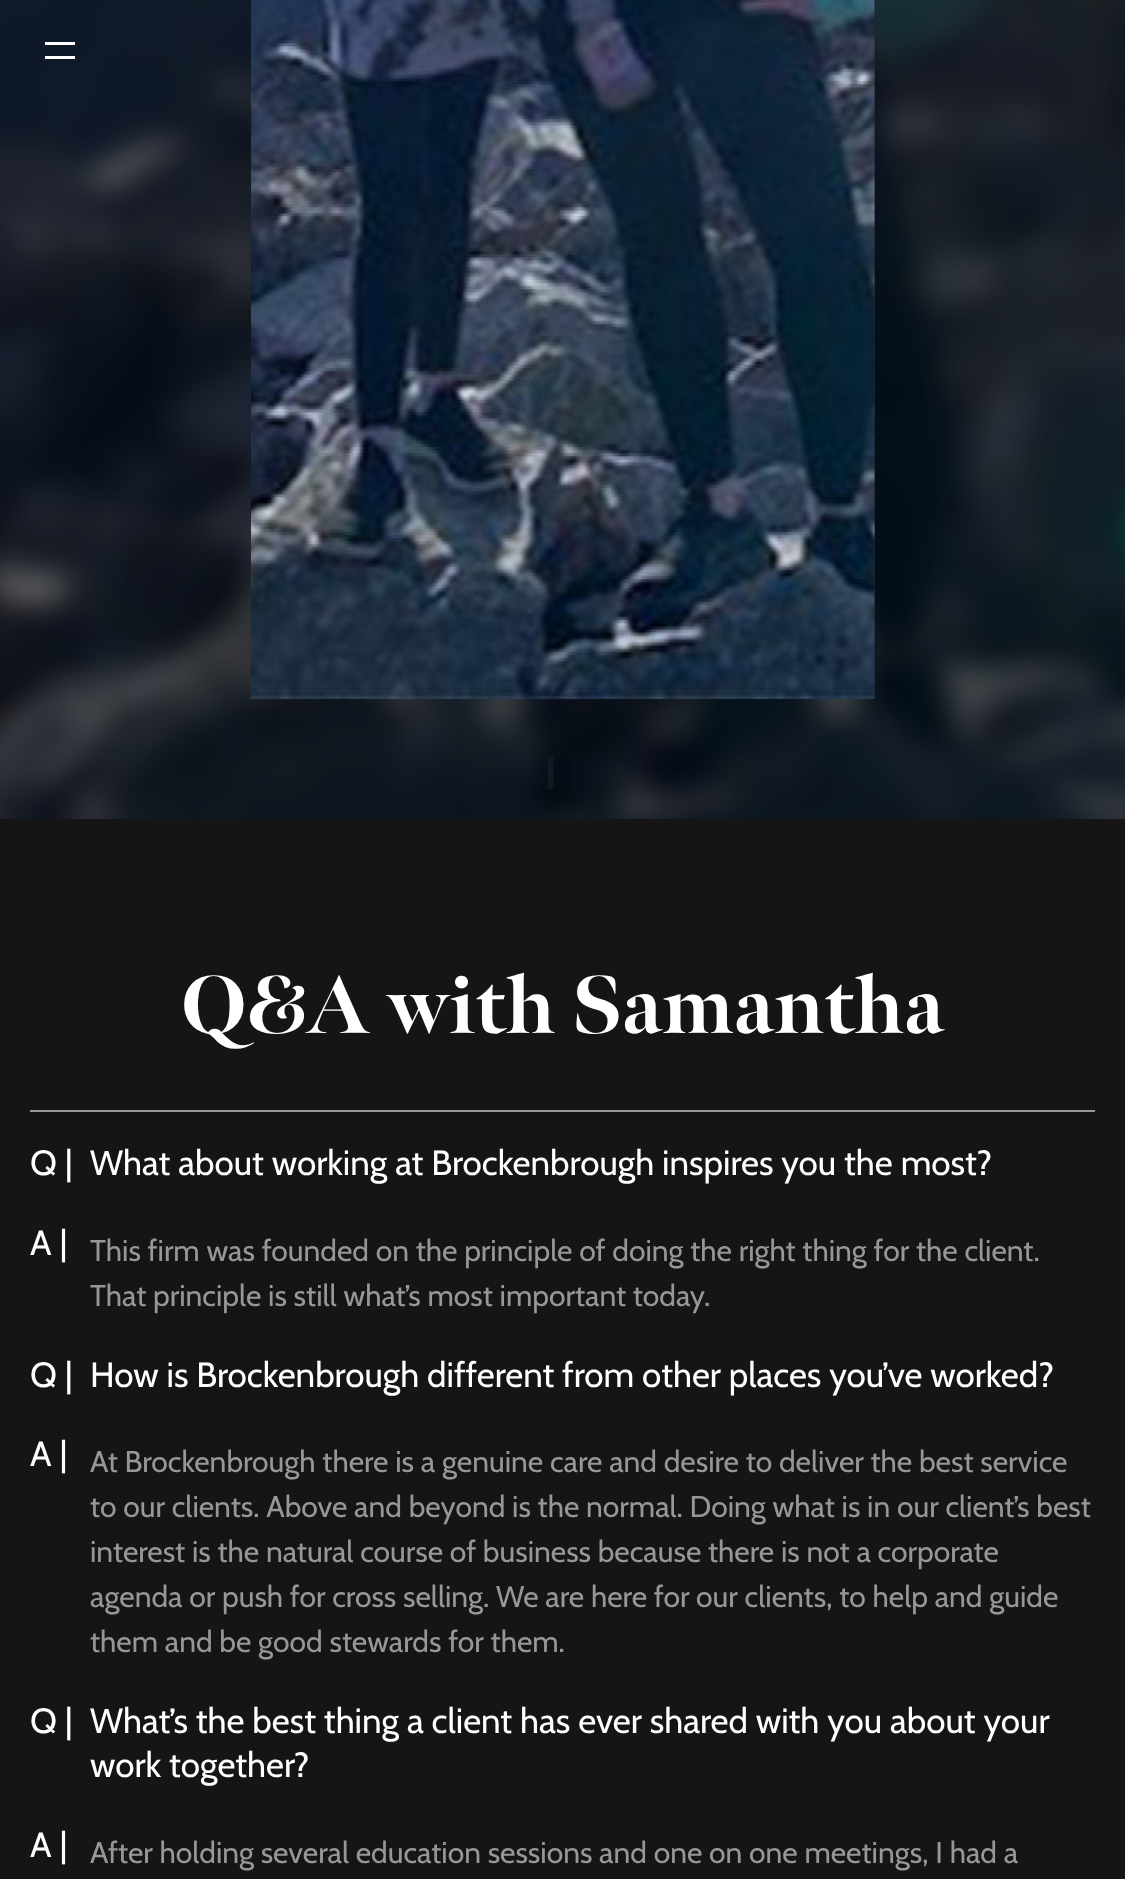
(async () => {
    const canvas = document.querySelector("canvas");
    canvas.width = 1125;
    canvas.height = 1879;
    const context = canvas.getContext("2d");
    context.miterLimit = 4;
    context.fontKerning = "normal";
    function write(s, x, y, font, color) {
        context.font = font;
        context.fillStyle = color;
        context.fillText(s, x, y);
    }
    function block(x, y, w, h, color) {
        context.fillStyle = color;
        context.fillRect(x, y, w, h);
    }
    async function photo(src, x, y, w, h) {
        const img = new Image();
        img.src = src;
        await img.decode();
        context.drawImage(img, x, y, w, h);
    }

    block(0, 0, 1125, 1879, "rgb(21, 21, 22)");
    await photo("media/1.png", 0, 0, 1125, 819);
    context.save();
    context.beginPath();
    context.rect(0, 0, 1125, 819);
    context.clip();
    context.fillStyle = "rgba(0, 0, 0, 0.2)";
    context.filter = "blur(15px)";
    context.beginPath();
    context.rect(-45, -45, 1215, 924);
    context.fill();
    context.filter = "none";
    context.fillStyle = "rgba(0, 0, 0, 0.4)";
    context.filter = "blur(15px)";
    context.beginPath();
    context.rect(-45, -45, 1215, 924);
    context.fill();
    context.filter = "none";
    context.restore();
    block(45, 42, 30, 3, "rgb(255, 255, 255)");
    block(45, 56, 30, 3, "rgb(255, 255, 255)");
    block(251, 0, 624, 699, "rgb(32, 33, 45)");
    await photo("media/2.png", 251, 0, 624, 699);
    context.fillStyle = "rgba(32, 33, 45, 0.5)";
    context.beginPath();
    context.moveTo(553.5, 754.5);
    context.lineTo(553.5, 789);
    context.lineTo(547.5, 789);
    context.lineTo(547.5, 760.5);
    context.closePath();
    context.fill();
    context.fillStyle = "rgb(10, 17, 27)";
    context.beginPath();
    context.moveTo(577.5, 754.5);
    context.lineTo(577.5, 789);
    context.lineTo(571.5, 789);
    context.lineTo(571.5, 760.5);
    context.closePath();
    context.fill();
    block(30, 1110, 1065, 2, "rgb(151, 151, 151)");
    write("Q&A with Samantha", 181, 1033, "800 81.75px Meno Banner", "rgb(255, 255, 255)");
    write("Q |", 30, 1175, "35px Cabin", "rgb(255, 255, 255)");
    write("What about working at Brockenbrough inspires you the most?", 90, 1175, "35px Cabin", "rgb(255, 255, 255)");
    write("A |", 30, 1255, "35px Cabin", "rgb(255, 255, 255)");
    write("This firm was founded on the principle of doing the right thing for the client.", 90, 1261, "30px Cabin", "rgb(151, 151, 151)");
    write("That principle is still what’s most important today.", 90, 1306, "30px Cabin", "rgb(151, 151, 151)");
    write("Q |", 30, 1387, "35px Cabin", "rgb(255, 255, 255)");
    write("How is Brockenbrough different from other places you’ve worked?", 90, 1387, "35px Cabin", "rgb(255, 255, 255)");
    write("A |", 30, 1466, "35px Cabin", "rgb(255, 255, 255)");
    write("At Brockenbrough there is a genuine care and desire to deliver the best service", 90, 1472, "30px Cabin", "rgb(151, 151, 151)");
    write("to our clients. Above and beyond is the normal. Doing what is in our client’s best", 90, 1517, "30px Cabin", "rgb(151, 151, 151)");
    write("interest is the natural course of business because there is not a corporate", 90, 1562, "30px Cabin", "rgb(151, 151, 151)");
    write("agenda or push for cross selling. We are here for our clients, to help and guide", 90, 1607, "30px Cabin", "rgb(151, 151, 151)");
    write("them and be good stewards for them.", 90, 1652, "30px Cabin", "rgb(151, 151, 151)");
    write("Q |", 30, 1733, "35px Cabin", "rgb(255, 255, 255)");
    write("What’s the best thing a client has ever shared with you about your", 90, 1733, "35px Cabin", "rgb(255, 255, 255)");
    write("work together?", 90, 1777, "35px Cabin", "rgb(255, 255, 255)");
    write("A |", 30, 1857, "35px Cabin", "rgb(255, 255, 255)");
    write("After holding several education sessions and one on one meetings, I had a", 90, 1863, "30px Cabin", "rgb(151, 151, 151)");
})();
